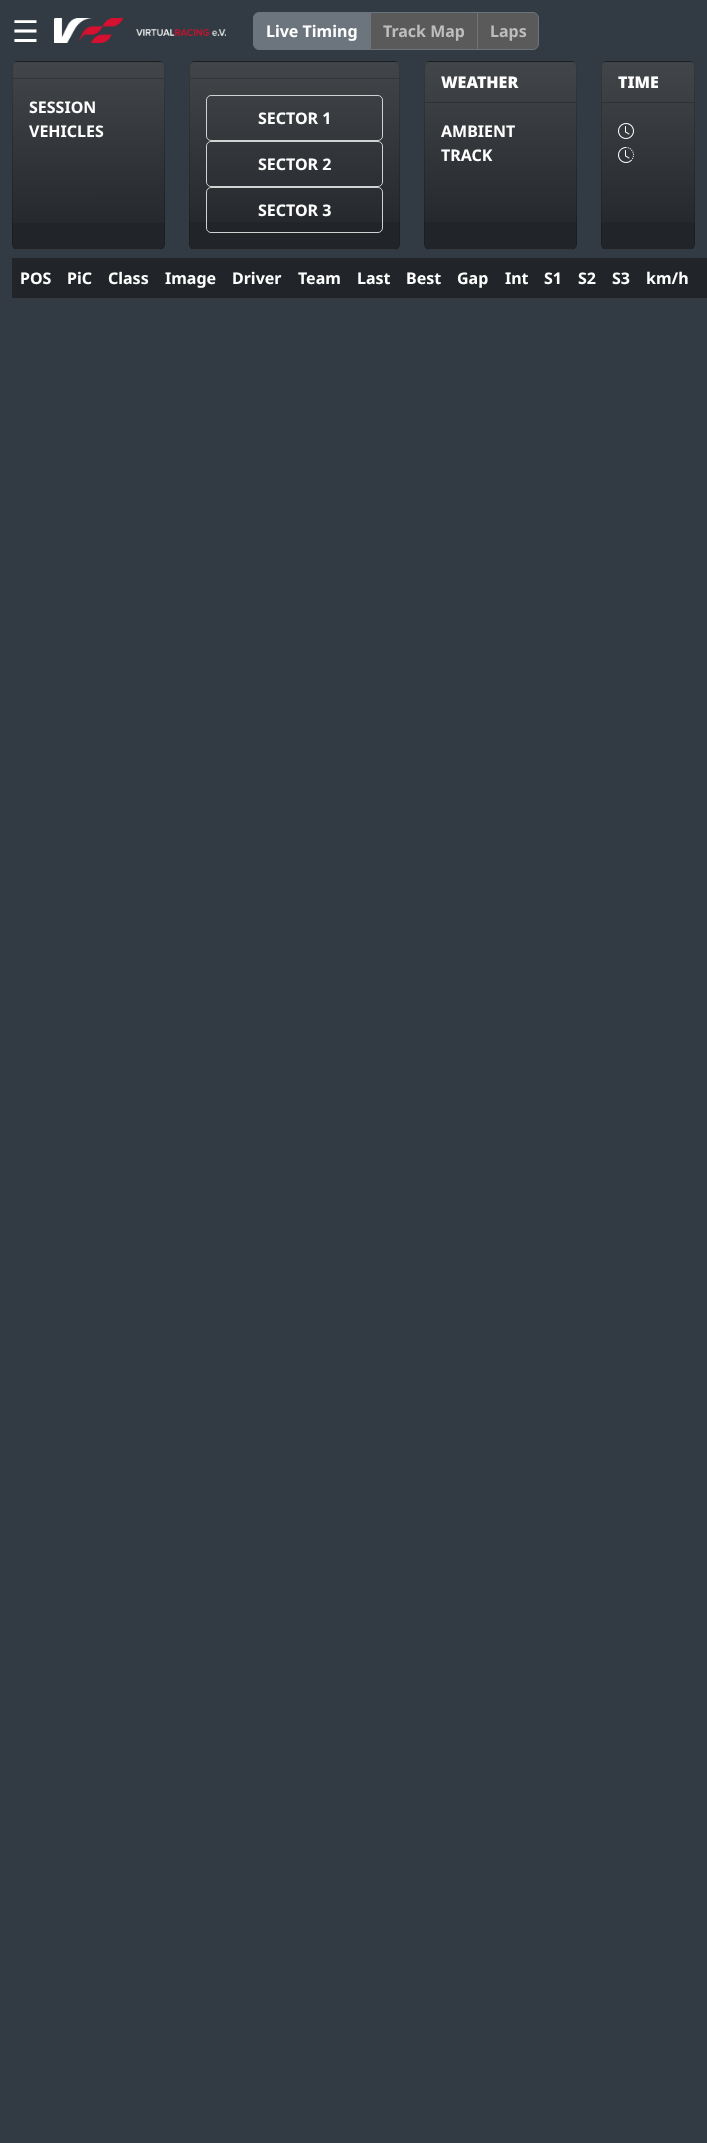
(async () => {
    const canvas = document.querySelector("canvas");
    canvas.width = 707;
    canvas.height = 2143;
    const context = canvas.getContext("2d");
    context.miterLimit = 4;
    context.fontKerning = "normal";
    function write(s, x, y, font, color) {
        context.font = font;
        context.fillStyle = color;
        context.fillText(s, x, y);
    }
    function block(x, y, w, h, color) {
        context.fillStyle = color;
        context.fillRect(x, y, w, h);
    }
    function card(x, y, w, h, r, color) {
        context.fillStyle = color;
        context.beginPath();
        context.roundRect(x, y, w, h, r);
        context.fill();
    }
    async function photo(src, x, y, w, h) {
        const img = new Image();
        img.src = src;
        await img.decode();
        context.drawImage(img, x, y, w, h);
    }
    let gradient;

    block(0, 0, 707, 2143, "rgb(50, 59, 67)");
    write("☰", 12, 42, "30px DejaVu Sans", "rgb(255, 255, 255)");
    await photo("media/1.png", 54, 18, 172, 25);
    context.fillStyle = "rgb(90, 90, 90)";
    context.beginPath();
    context.rect(370.5, 12.5, 107, 37);
    context.fill();
    context.strokeStyle = "rgb(108, 117, 125)";
    context.stroke();
    context.fillStyle = "rgb(108, 117, 125)";
    context.beginPath();
    context.roundRect(253.5, 12.5, 117, 37, [5.5, 0, 0, 5.5]);
    context.fill();
    context.stroke();
    write("Live Timing", 266, 37, "bold 16px Noto Sans", "rgb(255, 255, 255)");
    write("Track Map", 383, 37, "bold 16px Noto Sans", "rgb(189, 189, 189)");
    context.fillStyle = "rgb(90, 90, 90)";
    context.beginPath();
    context.roundRect(477.5, 12.5, 61, 37, [0, 5.5, 5.5, 0]);
    context.fill();
    context.stroke();
    write("Laps", 490, 37, "bold 16px Noto Sans", "rgb(189, 189, 189)");
    card(424, 61, 153, 189, 6, "rgb(33, 37, 41)");
    context.save();
    context.beginPath();
    context.roundRect(424, 61, 153, 189, 6);
    context.clip();
    gradient = context.createLinearGradient(501, 62, 501, 249);
    gradient.addColorStop(0, "rgba(255, 255, 255, 0.15)");
    gradient.addColorStop(1, "rgba(255, 255, 255, 0)");
    context.fillStyle = gradient;
    context.fillRect(424, 62, 153, 160);
    gradient = context.createLinearGradient(501, 249, 501, 436);
    gradient.addColorStop(0, "rgba(255, 255, 255, 0.15)");
    gradient.addColorStop(1, "rgba(255, 255, 255, 0)");
    context.fillStyle = gradient;
    context.fillRect(424, 249, 153, 1);
    context.restore();
    context.beginPath();
    context.roundRect(424.5, 61.5, 152, 188, 5.5);
    context.strokeStyle = "rgba(0, 0, 0, 0.18)";
    context.stroke();
    block(425, 102, 151, 1, "rgb(47, 50, 53)");
    write("WEATHER", 441, 88, "900 16px Noto Sans", "rgb(255, 255, 255)");
    write("AMBIENT", 441, 137, "bold 16px Noto Sans", "rgb(255, 255, 255)");
    write("TRACK", 441, 161, "bold 16px Noto Sans", "rgb(255, 255, 255)");
    card(601, 61, 94, 189, 6, "rgb(33, 37, 41)");
    context.save();
    context.beginPath();
    context.roundRect(601, 61, 94, 189, 6);
    context.clip();
    gradient = context.createLinearGradient(648, 62, 648, 249);
    gradient.addColorStop(0, "rgba(255, 255, 255, 0.15)");
    gradient.addColorStop(1, "rgba(255, 255, 255, 0)");
    context.fillStyle = gradient;
    context.fillRect(601, 62, 94, 160);
    gradient = context.createLinearGradient(648, 249, 648, 436);
    gradient.addColorStop(0, "rgba(255, 255, 255, 0.15)");
    gradient.addColorStop(1, "rgba(255, 255, 255, 0)");
    context.fillStyle = gradient;
    context.fillRect(601, 249, 94, 1);
    context.restore();
    context.beginPath();
    context.roundRect(601.5, 61.5, 93, 188, 5.5);
    context.stroke();
    block(602, 102, 92, 1, "rgb(47, 50, 53)");
    write("TIME", 618, 88, "900 16px Noto Sans", "rgb(255, 255, 255)");
    await photo("media/2.png", 618, 123, 16, 16);
    await photo("media/3.png", 618, 147, 16, 16);
    card(12, 61, 153, 189, 6, "rgb(33, 37, 41)");
    context.save();
    context.beginPath();
    context.roundRect(12, 61, 153, 189, 6);
    context.clip();
    gradient = context.createLinearGradient(88, 62, 89, 249);
    gradient.addColorStop(0, "rgba(255, 255, 255, 0.15)");
    gradient.addColorStop(1, "rgba(255, 255, 255, 0)");
    context.fillStyle = gradient;
    context.fillRect(12, 62, 153, 161);
    gradient = context.createLinearGradient(88, 249, 89, 436);
    gradient.addColorStop(0, "rgba(255, 255, 255, 0.15)");
    gradient.addColorStop(1, "rgba(255, 255, 255, 0)");
    context.fillStyle = gradient;
    context.fillRect(12, 249, 153, 1);
    context.restore();
    context.beginPath();
    context.roundRect(12.5, 61.5, 152, 188, 5.5);
    context.stroke();
    block(13, 78, 151, 1, "rgb(51, 53, 56)");
    write("SESSION", 29, 113, "bold 16px Noto Sans", "rgb(255, 255, 255)");
    write("VEHICLES", 29, 137, "bold 16px Noto Sans", "rgb(255, 255, 255)");
    card(189, 61, 211, 189, 6, "rgb(33, 37, 41)");
    context.save();
    context.beginPath();
    context.roundRect(189, 61, 211, 189, 6);
    context.clip();
    gradient = context.createLinearGradient(295, 62, 295, 249);
    gradient.addColorStop(0, "rgba(255, 255, 255, 0.15)");
    gradient.addColorStop(1, "rgba(255, 255, 255, 0)");
    context.fillStyle = gradient;
    context.fillRect(189, 62, 211, 160);
    gradient = context.createLinearGradient(295, 249, 295, 436);
    gradient.addColorStop(0, "rgba(255, 255, 255, 0.15)");
    gradient.addColorStop(1, "rgba(255, 255, 255, 0)");
    context.fillStyle = gradient;
    context.fillRect(189, 249, 211, 1);
    context.restore();
    context.beginPath();
    context.roundRect(189.5, 61.5, 210, 188, 5.5);
    context.stroke();
    block(190, 78, 209, 1, "rgb(51, 53, 56)");
    context.beginPath();
    context.roundRect(206.5, 95.5, 176, 45, 4.5);
    context.strokeStyle = "rgb(210, 210, 210)";
    context.stroke();
    write("SECTOR 1", 258, 124, "bold 16px Noto Sans", "rgb(255, 255, 255)");
    context.beginPath();
    context.roundRect(206.5, 141.5, 176, 45, 4.5);
    context.stroke();
    write("SECTOR 2", 258, 170, "bold 16px Noto Sans", "rgb(255, 255, 255)");
    context.beginPath();
    context.roundRect(206.5, 187.5, 176, 45, 4.5);
    context.stroke();
    write("SECTOR 3", 258, 216, "bold 16px Noto Sans", "rgb(255, 255, 255)");
    block(12, 258, 695, 40, "rgb(33, 37, 41)");
    write("POS", 20, 284, "bold 16px Noto Sans", "rgb(255, 255, 255)");
    write("PiC", 67, 284, "bold 16px Noto Sans", "rgb(255, 255, 255)");
    write("Class", 108, 284, "bold 16px Noto Sans", "rgb(255, 255, 255)");
    write("Image", 165, 284, "bold 16px Noto Sans", "rgb(255, 255, 255)");
    write("Driver", 232, 284, "bold 16px Noto Sans", "rgb(255, 255, 255)");
    write("Team", 298, 284, "bold 16px Noto Sans", "rgb(255, 255, 255)");
    write("Last", 357, 284, "bold 16px Noto Sans", "rgb(255, 255, 255)");
    write("Best", 406, 284, "bold 16px Noto Sans", "rgb(255, 255, 255)");
    write("Gap", 457, 284, "bold 16px Noto Sans", "rgb(255, 255, 255)");
    write("Int", 505, 284, "bold 16px Noto Sans", "rgb(255, 255, 255)");
    write("S1", 544, 284, "bold 16px Noto Sans", "rgb(255, 255, 255)");
    write("S2", 578, 284, "bold 16px Noto Sans", "rgb(255, 255, 255)");
    write("S3", 612, 284, "bold 16px Noto Sans", "rgb(255, 255, 255)");
    write("km/h", 646, 284, "bold 16px Noto Sans", "rgb(255, 255, 255)");
    block(12, 298, 695, 1, "rgb(55, 59, 62)");
})();
